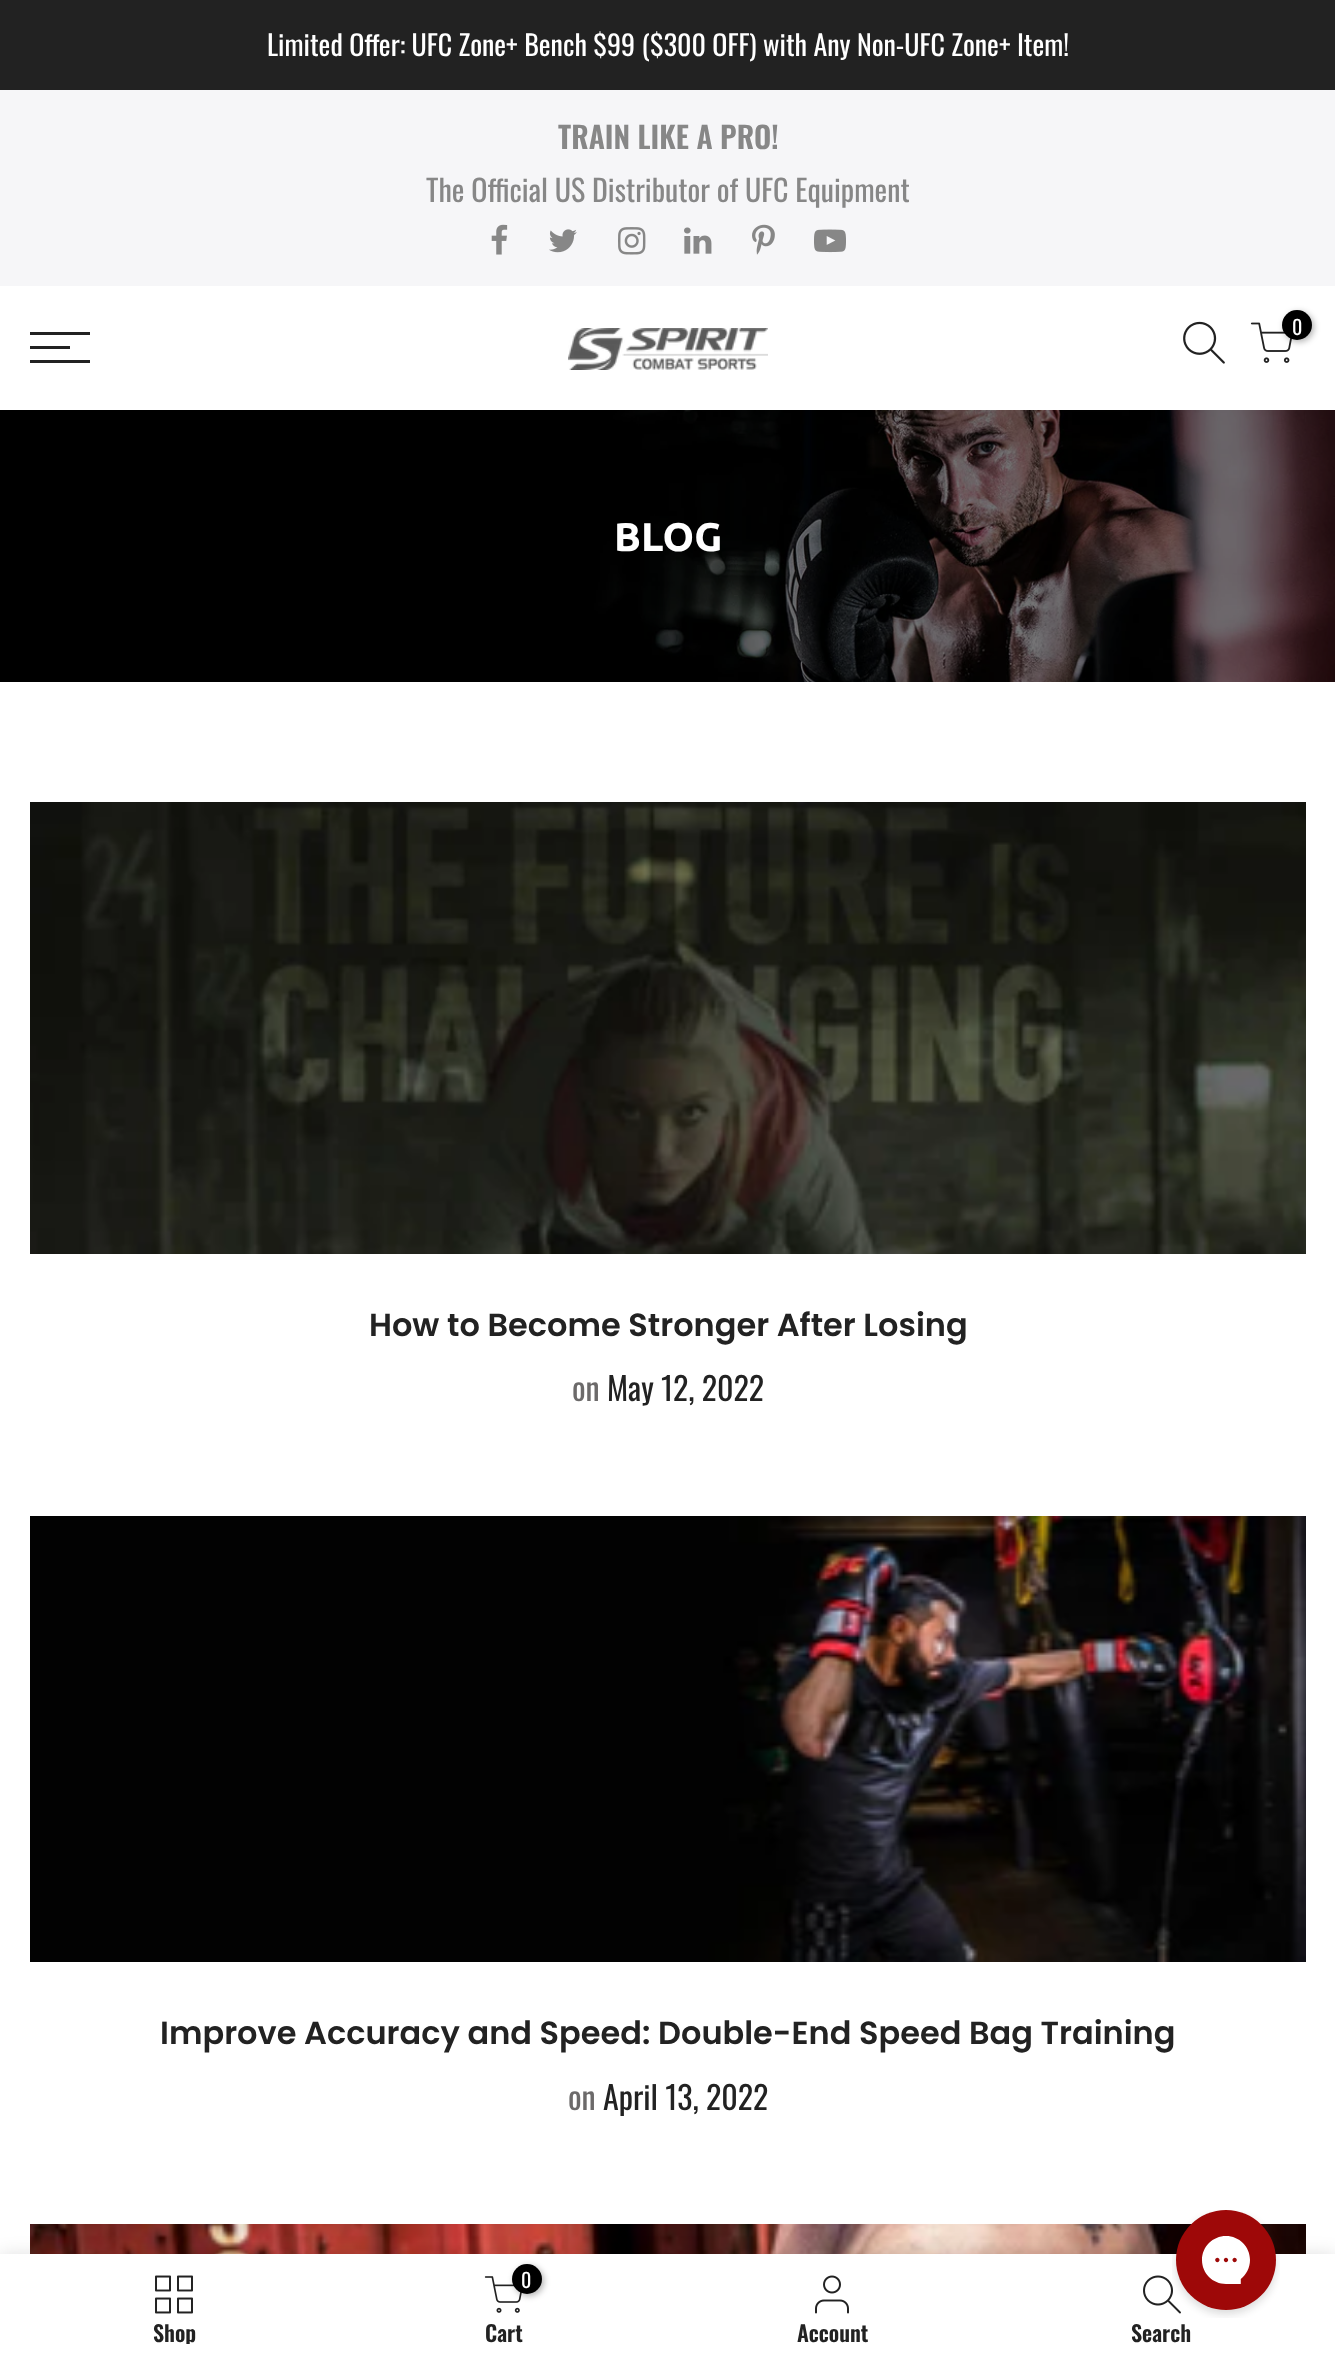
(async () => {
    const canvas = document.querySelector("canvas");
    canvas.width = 1335;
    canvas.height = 2363;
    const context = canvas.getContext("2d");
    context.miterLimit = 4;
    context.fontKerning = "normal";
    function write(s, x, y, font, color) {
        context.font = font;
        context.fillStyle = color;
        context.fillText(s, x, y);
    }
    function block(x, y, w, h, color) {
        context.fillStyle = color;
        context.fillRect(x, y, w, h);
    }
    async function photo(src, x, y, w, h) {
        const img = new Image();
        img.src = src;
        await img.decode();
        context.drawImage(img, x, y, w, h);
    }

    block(0, 0, 1335, 2363, "rgb(255, 255, 255)");
    block(0, 0, 1335, 90, "rgb(34, 34, 34)");
    write("Limited Offer: UFC Zone+ Bench $99 ($300 OFF) with Any Non-UFC Zone+ Item!", 267, 56, "28px Oswald", "rgb(255, 255, 255)");
    block(0, 90, 1335, 196, "rgb(246, 246, 248)");
    write("TRAIN LIKE A PRO!", 558, 149, "600 30px Oswald", "rgb(135, 135, 135)");
    write("The Official US Distributor of UFC Equipment", 426, 202, "30px Oswald", "rgb(135, 135, 135)");
    await photo("media/1.png", 491, 224, 17, 31);
    await photo("media/2.png", 549, 229, 28, 24);
    await photo("media/3.png", 618, 227, 28, 28);
    await photo("media/4.png", 684, 227, 28, 27);
    await photo("media/5.png", 752, 224, 23, 31);
    await photo("media/6.png", 814, 229, 32, 24);
    block(30, 332, 60, 3, "rgb(34, 34, 34)");
    block(30, 346, 40, 3, "rgb(34, 34, 34)");
    block(30, 360, 60, 3, "rgb(34, 34, 34)");
    await photo("media/7.png", 568, 328, 200, 42);
    await photo("media/8.png", 1183, 321, 42, 43);
    await photo("media/9.png", 1250, 322, 42, 41);
    context.fillStyle = "rgba(0, 0, 0, 0.3)";
    context.filter = "blur(3px)";
    context.beginPath();
    context.roundRect(1284, 312, 30, 30, 15);
    context.fill();
    context.filter = "none";
    context.fillStyle = "rgb(0, 0, 0)";
    context.beginPath();
    context.arc(1297, 325, 15, 0, Math.PI * 2);
    context.fill();
    write("0", 1292, 335, "20px Oswald", "rgb(255, 255, 255)");
    await photo("media/10.png", 0, 410, 1335, 272);
    write("BLOG", 614, 551, "bold 40px Ubuntu", "rgb(255, 255, 255)");
    await photo("media/11.png", 30, 802, 1276, 452);
    write("How to Become Stronger After Losing", 369, 1336, "600 32px Poppins", "rgb(34, 34, 34)");
    write("on", 572, 1401, "32px Oswald", "rgb(108, 106, 106)");
    write("May 12, 2022", 607, 1401, "32px Oswald", "rgb(34, 34, 34)");
    await photo("media/12.png", 30, 1516, 1276, 446);
    write("Improve Accuracy and Speed: Double-End Speed Bag Training", 160, 2044, "600 32px Poppins", "rgb(34, 34, 34)");
    write("on", 568, 2110, "32px Oswald", "rgb(108, 106, 106)");
    write("April 13, 2022", 603, 2110, "32px Oswald", "rgb(34, 34, 34)");
    await photo("media/13.png", 30, 2224, 1276, 30);
    context.fillStyle = "rgba(0, 0, 0, 0.12)";
    context.filter = "blur(9px)";
    context.beginPath();
    context.rect(0, 2254, 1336, 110);
    context.fill();
    context.filter = "none";
    block(0, 2254, 1335, 109, "rgb(255, 255, 255)");
    await photo("media/14.png", 155, 2275, 38, 39);
    context.save();
    context.beginPath();
    context.rect(30, 2322, 290, 22);
    context.clip();
    write("Shop", 153, 2342, "600 22px Oswald", "rgb(34, 34, 34)");
    context.restore();
    await photo("media/15.png", 484, 2276, 38, 37);
    context.fillStyle = "rgba(0, 0, 0, 0.3)";
    context.filter = "blur(3px)";
    context.beginPath();
    context.roundRect(514, 2266, 30, 30, 15);
    context.fill();
    context.filter = "none";
    context.fillStyle = "rgb(0, 0, 0)";
    context.beginPath();
    context.arc(527, 2279, 15, 0, Math.PI * 2);
    context.fill();
    write("0", 521, 2288, "20px Oswald", "rgb(255, 255, 255)");
    write("Cart", 485, 2342, "600 22px Oswald", "rgb(34, 34, 34)");
    await photo("media/16.png", 815, 2275, 34, 39);
    write("Account", 797, 2342, "600 22px Oswald", "rgb(34, 34, 34)");
    await photo("media/17.png", 1143, 2275, 38, 39);
    write("Search", 1131, 2342, "600 22px Oswald", "rgb(34, 34, 34)");
    await photo("media/18.png", 1172, 2210, 108, 108);
})();
